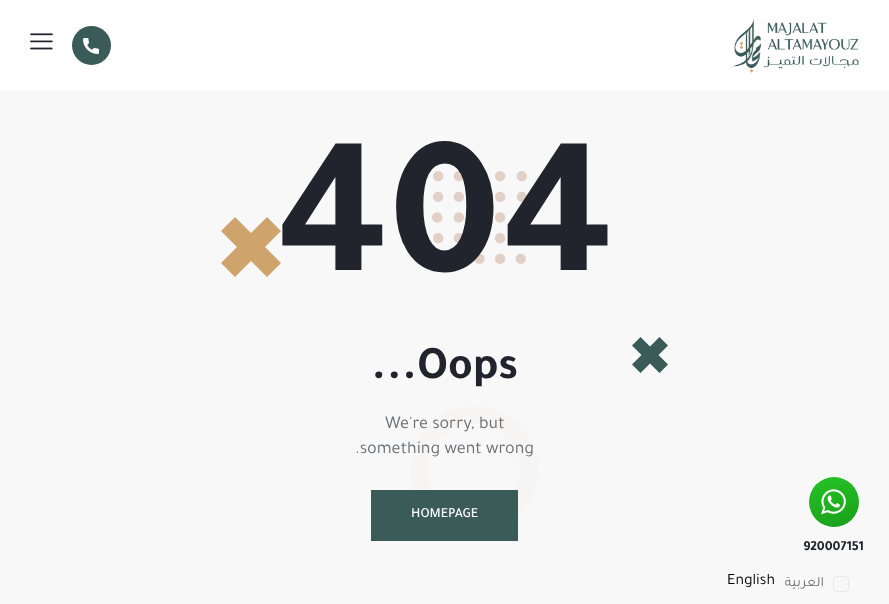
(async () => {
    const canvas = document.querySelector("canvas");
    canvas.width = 889;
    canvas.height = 604;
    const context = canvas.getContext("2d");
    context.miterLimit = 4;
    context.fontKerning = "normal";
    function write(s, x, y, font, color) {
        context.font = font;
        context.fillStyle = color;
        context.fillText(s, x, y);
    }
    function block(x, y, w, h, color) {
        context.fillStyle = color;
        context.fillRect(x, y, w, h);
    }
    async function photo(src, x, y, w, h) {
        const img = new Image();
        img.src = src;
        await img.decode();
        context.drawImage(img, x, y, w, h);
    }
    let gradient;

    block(0, 0, 889, 604, "rgb(248, 248, 248)");
    await photo("media/1.png", 432, 171, 95, 93);
    write("404", 276, 270, "bold 200px Tajawal", "rgb(33, 36, 44)");
    context.fillStyle = "rgb(207, 163, 108)";
    context.beginPath();
    context.moveTo(221, 263);
    context.lineTo(237, 247);
    context.lineTo(221, 231);
    context.lineTo(235, 217);
    context.lineTo(251, 233);
    context.lineTo(267, 217);
    context.lineTo(281, 231);
    context.lineTo(265, 247);
    context.lineTo(281, 263);
    context.lineTo(267, 277);
    context.lineTo(251, 261);
    context.lineTo(235, 277);
    context.closePath();
    context.fill();
    context.fillStyle = "rgb(59, 91, 89)";
    context.beginPath();
    context.moveTo(632, 364.5);
    context.lineTo(641.5, 355);
    context.lineTo(632, 345.5);
    context.lineTo(640.5, 337);
    context.lineTo(650, 346.5);
    context.lineTo(659.5, 337);
    context.lineTo(668, 345.5);
    context.lineTo(658.5, 355);
    context.lineTo(668, 364.5);
    context.lineTo(659.5, 373);
    context.lineTo(650, 363.5);
    context.lineTo(640.5, 373);
    context.closePath();
    context.fill();
    context.beginPath();
    context.arc(474, 470, 55, 0, Math.PI * 2);
    context.strokeStyle = "rgb(246, 245, 244)";
    context.lineWidth = 17.3;
    context.stroke();
    write("...Oops", 371, 378, "bold 47px Tajawal", "rgb(33, 36, 44)");
    write("We're sorry, but", 385, 428, "18px Tajawal", "rgb(107, 110, 113)");
    write(".something went wrong", 355, 453, "18px Tajawal", "rgb(107, 110, 113)");
    block(371, 490, 147, 51, "rgb(59, 91, 89)");
    write("HOMEPAGE", 411, 517, "500 14px Tajawal", "rgb(255, 255, 255)");
    block(0, 0, 889, 91, "rgb(255, 255, 255)");
    await photo("media/2.png", 30, 33, 23, 17);
    context.fillStyle = "rgb(59, 91, 89)";
    context.beginPath();
    context.arc(91.5, 45.5, 19.5, 0, Math.PI * 2);
    context.fill();
    await photo("media/3.png", 83, 38, 16, 16);
    await photo("media/4.png", 732, 18, 127, 55);
    gradient = context.createLinearGradient(825, 472, 843, 532);
    gradient.addColorStop(0, "rgb(39, 195, 39)");
    gradient.addColorStop(1, "rgb(25, 159, 25)");
    context.fillStyle = gradient;
    context.beginPath();
    context.arc(834, 502, 25, 0, Math.PI * 2);
    context.fill();
    await photo("media/5.png", 821, 489, 25, 26);
    write("920007151", 803, 550, "bold 14px Tajawal", "rgb(33, 36, 44)");
    write("English", 727, 584, "16px Tajawal", "rgb(0, 0, 0)");
    context.direction = "rtl";
    write("العربية", 824, 586, "14px Tajawal", "rgb(107, 110, 113)");
    context.beginPath();
    context.roundRect(833.5, 576.5, 15, 15, 3.5);
    context.strokeStyle = "rgb(232, 232, 232)";
    context.lineWidth = 1;
    context.stroke();
})();
